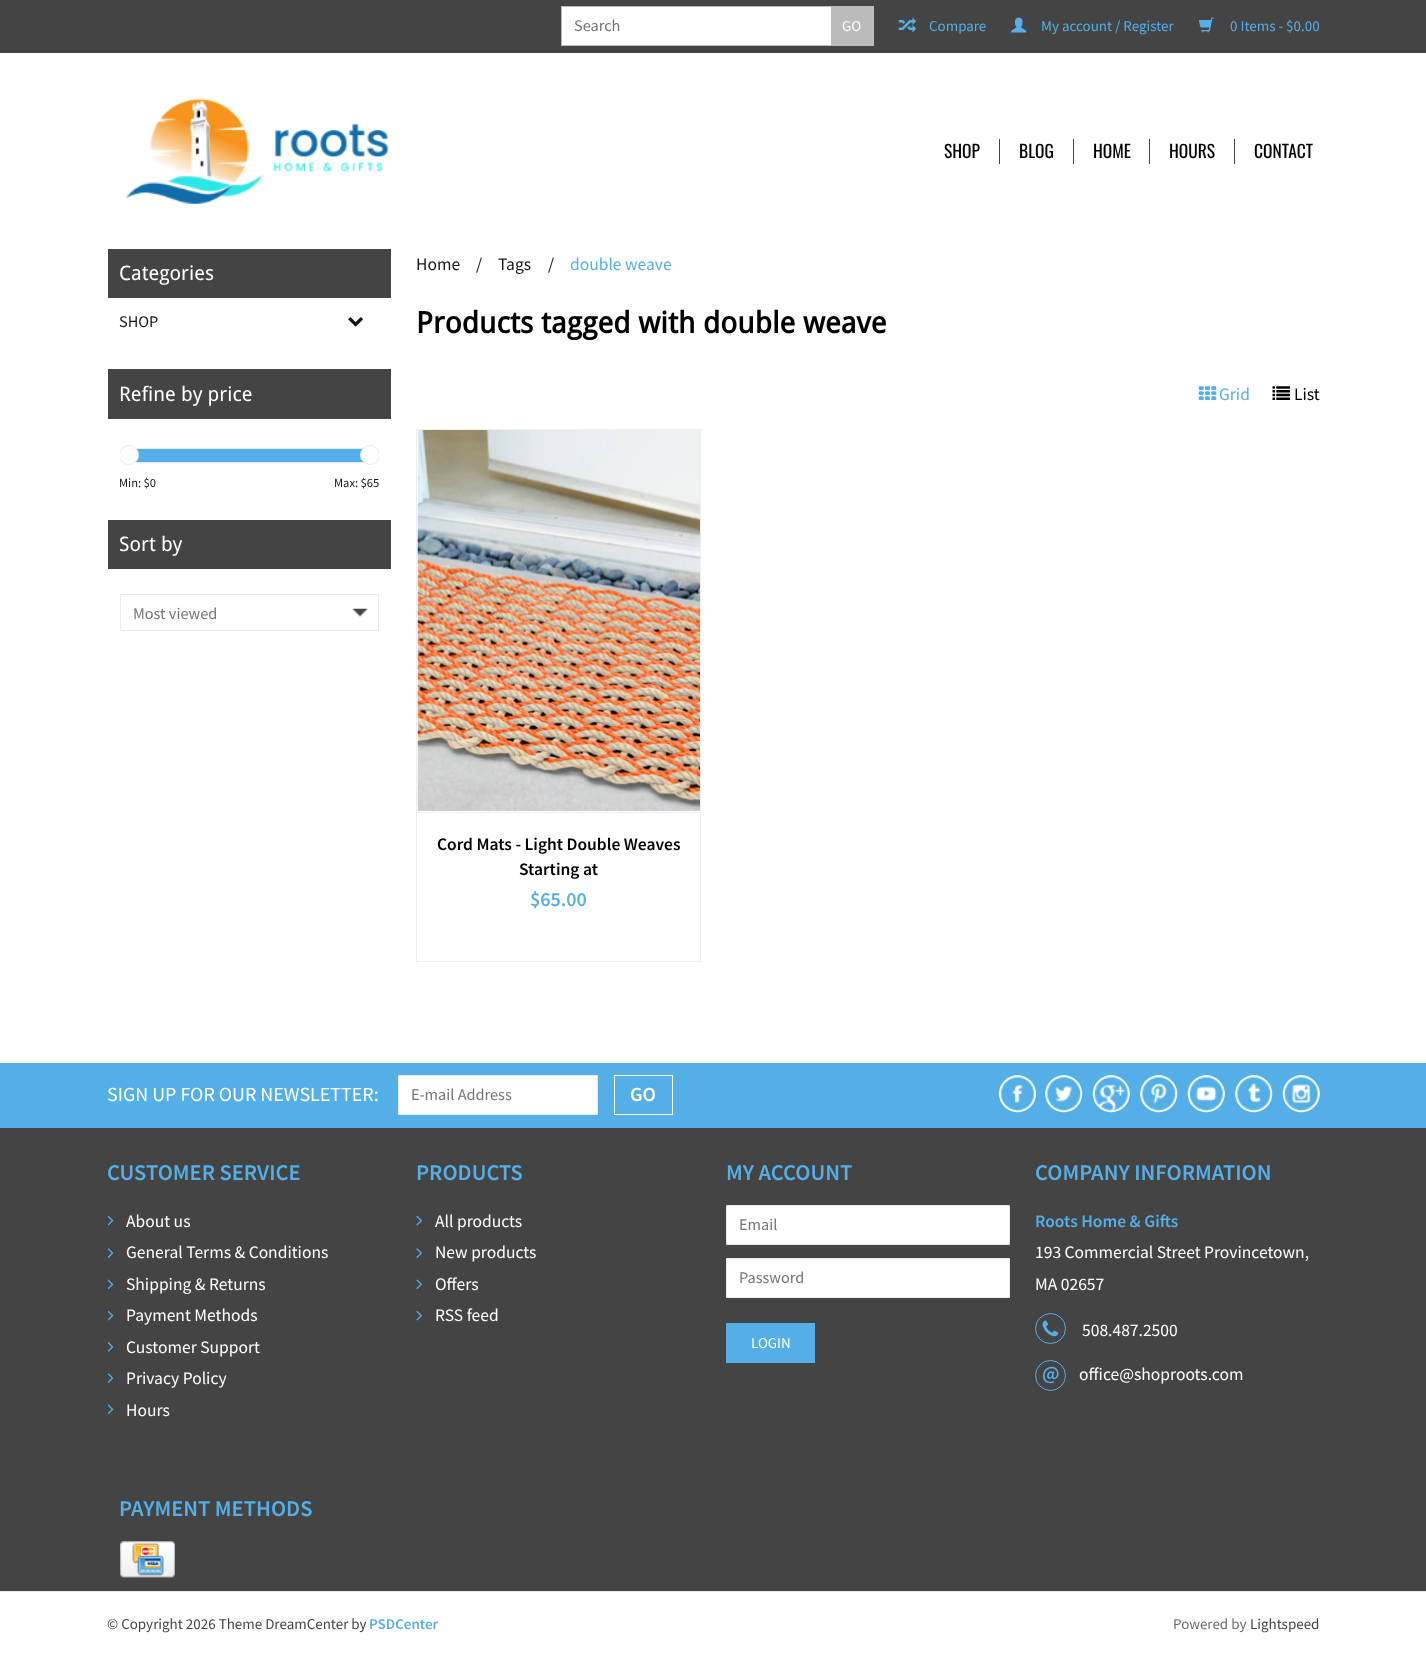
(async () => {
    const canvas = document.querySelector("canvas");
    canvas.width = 1426;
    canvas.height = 1653;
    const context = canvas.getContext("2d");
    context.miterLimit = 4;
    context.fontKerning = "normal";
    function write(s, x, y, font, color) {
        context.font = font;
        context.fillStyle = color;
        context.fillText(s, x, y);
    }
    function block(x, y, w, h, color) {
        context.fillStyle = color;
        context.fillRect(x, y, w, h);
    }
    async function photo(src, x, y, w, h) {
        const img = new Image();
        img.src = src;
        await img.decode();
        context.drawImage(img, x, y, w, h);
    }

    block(0, 0, 1426, 1653, "rgb(255, 255, 255)");
    block(0, 0, 1426, 53, "rgb(68, 68, 68)");
    block(0, 51, 1426, 1, "rgb(63, 63, 63)");
    block(562, 7, 269, 38, "rgb(255, 255, 255)");
    context.strokeStyle = "rgb(187, 187, 187)";
    context.strokeRect(561.5, 6.5, 312, 39);
    write("Search", 574, 31, "16.25px Source Sans Pro", "rgb(117, 117, 117)");
    block(831, 7, 42, 38, "rgb(187, 187, 187)");
    write("GO", 842, 31, "15px Source Sans Pro", "rgb(255, 255, 255)");
    await photo("media/1.png", 898, 17, 19, 16);
    write("Compare", 929, 31, "15px Source Sans Pro", "rgb(84, 175, 233)");
    await photo("media/2.png", 1011, 17, 16, 16);
    write("My account / Register", 1041, 31, "15px Source Sans Pro", "rgb(84, 175, 233)");
    await photo("media/3.png", 1199, 17, 15, 16);
    write("0 Items - $0.00", 1230, 31, "15px Source Sans Pro", "rgb(84, 175, 233)");
    await photo("media/4.png", 126, 98, 263, 107);
    write("SHOP", 944, 158, "17.5px Oswald", "rgb(0, 0, 0)");
    block(999, 139, 1, 25, "rgb(68, 68, 68)");
    write("BLOG", 1019, 158, "17.5px Oswald", "rgb(0, 0, 0)");
    block(1073, 139, 1, 25, "rgb(68, 68, 68)");
    write("HOME", 1093, 158, "17.5px Oswald", "rgb(0, 0, 0)");
    block(1149, 139, 1, 25, "rgb(68, 68, 68)");
    write("HOURS", 1169, 158, "17.5px Oswald", "rgb(0, 0, 0)");
    block(1234, 139, 1, 25, "rgb(68, 68, 68)");
    write("CONTACT", 1254, 158, "17.5px Oswald", "rgb(0, 0, 0)");
    block(108, 249, 283, 49, "rgb(68, 68, 68)");
    write("Categories", 119, 280, "20px Droid Sans", "rgb(255, 255, 255)");
    write("SHOP", 119, 327, "16.25px Source Sans Pro", "rgb(20, 20, 20)");
    await photo("media/5.png", 348, 317, 15, 10);
    block(108, 369, 283, 50, "rgb(68, 68, 68)");
    write("Refine by price", 119, 401, "20px Droid Sans", "rgb(255, 255, 255)");
    block(136, 449, 227, 13, "rgb(84, 175, 233)");
    context.strokeStyle = "rgb(234, 234, 234)";
    context.strokeRect(130.5, 448.5, 240, 14);
    context.save();
    context.beginPath();
    context.rect(120, 444, 259, 51);
    context.clip();
    context.fillStyle = "rgb(254, 254, 254)";
    context.beginPath();
    context.arc(129, 455, 9.5, 0, Math.PI * 2);
    context.fill();
    context.stroke();
    context.beginPath();
    context.arc(370, 455, 9.5, 0, Math.PI * 2);
    context.fill();
    context.stroke();
    context.restore();
    write("Min: $0", 119, 487, "12.5px Source Sans Pro", "rgb(20, 20, 20)");
    write("Max: $65", 334, 487, "12.5px Source Sans Pro", "rgb(20, 20, 20)");
    block(108, 520, 283, 49, "rgb(68, 68, 68)");
    write("Sort by", 119, 551, "20px Droid Sans", "rgb(255, 255, 255)");
    await photo("media/6.png", 352, 608, 16, 9);
    context.strokeRect(120.5, 594.5, 258, 36);
    write("Most viewed", 133, 619, "16.25px Source Sans Pro", "rgb(117, 117, 117)");
    write("Home", 416, 270, "17.5px Source Sans Pro", "rgb(20, 20, 20)");
    write("/", 476, 270, "17.5px Source Sans Pro", "rgb(20, 20, 20)");
    write("Tags", 498, 270, "17.5px Source Sans Pro", "rgb(20, 20, 20)");
    write("/", 548, 270, "17.5px Source Sans Pro", "rgb(20, 20, 20)");
    write("double weave", 570, 270, "17.5px Source Sans Pro", "rgb(84, 175, 233)");
    write("Products tagged with double weave", 416, 333, "bold 29.5px Droid Sans", "rgb(0, 0, 0)");
    await photo("media/7.png", 1198, 386, 19, 14);
    write("Grid", 1219, 400, "17.5px Source Sans Pro", "rgb(84, 175, 233)");
    await photo("media/8.png", 1272, 386, 18, 14);
    write("List", 1294, 400, "17.5px Source Sans Pro", "rgb(0, 0, 0)");
    context.strokeStyle = "rgb(239, 239, 239)";
    context.strokeRect(416.5, 429.5, 284, 383);
    await photo("media/9.png", 417, 430, 283, 381);
    block(700, 813, 1, 150, "rgb(239, 239, 239)");
    block(416, 961, 285, 1, "rgb(239, 239, 239)");
    block(416, 813, 1, 150, "rgb(239, 239, 239)");
    write("Cord Mats - Light Double Weaves", 437, 850, "600 17.5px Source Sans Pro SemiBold", "rgb(0, 0, 0)");
    write("Starting at", 519, 875, "600 17.5px Source Sans Pro SemiBold", "rgb(0, 0, 0)");
    write("$65.00", 530, 906, "600 20px Source Sans Pro SemiBold", "rgb(84, 175, 233)");
    block(0, 1128, 1426, 463, "rgb(68, 68, 68)");
    block(0, 1063, 1426, 65, "rgb(84, 175, 233)");
    write("SIGN UP FOR OUR NEWSLETTER:", 107, 1101, "20px Source Sans Pro", "rgb(255, 255, 255)");
    context.beginPath();
    context.rect(398.5, 1075.5, 199, 39);
    context.fill();
    context.strokeStyle = "rgb(233, 233, 233)";
    context.stroke();
    write("E-mail Address", 411, 1100, "16.25px Source Sans Pro", "rgb(117, 117, 117)");
    context.strokeStyle = "rgb(255, 255, 255)";
    context.strokeRect(614.5, 1075.5, 58, 39);
    write("GO", 630, 1101, "600 20px Source Sans Pro SemiBold", "rgb(255, 255, 255)");
    await photo("media/10.png", 998, 1075, 39, 38);
    await photo("media/11.png", 1045, 1075, 38, 38);
    await photo("media/12.png", 1092, 1075, 38, 38);
    await photo("media/13.png", 1140, 1075, 38, 38);
    await photo("media/14.png", 1187, 1075, 38, 38);
    await photo("media/15.png", 1235, 1075, 38, 38);
    await photo("media/16.png", 1282, 1075, 38, 38);
    write("CUSTOMER SERVICE", 107, 1180, "600 22.5px Source Sans Pro SemiBold", "rgb(84, 175, 233)");
    await photo("media/17.png", 108, 1215, 6, 11);
    write("About us", 126, 1227, "17.5px Source Sans Pro", "rgb(255, 255, 255)");
    await photo("media/18.png", 108, 1248, 6, 10);
    write("General Terms & Conditions", 126, 1258, "17.5px Source Sans Pro", "rgb(255, 255, 255)");
    await photo("media/19.png", 108, 1279, 6, 11);
    write("Shipping & Returns", 126, 1290, "17.5px Source Sans Pro", "rgb(255, 255, 255)");
    await photo("media/17.png", 108, 1310, 6, 11);
    write("Payment Methods", 126, 1321, "17.5px Source Sans Pro", "rgb(255, 255, 255)");
    await photo("media/20.png", 108, 1342, 6, 10);
    write("Customer Support", 126, 1353, "17.5px Source Sans Pro", "rgb(255, 255, 255)");
    await photo("media/18.png", 108, 1373, 6, 10);
    write("Privacy Policy", 126, 1384, "17.5px Source Sans Pro", "rgb(255, 255, 255)");
    await photo("media/19.png", 108, 1404, 6, 11);
    write("Hours", 126, 1416, "17.5px Source Sans Pro", "rgb(255, 255, 255)");
    write("PRODUCTS", 416, 1180, "600 22.5px Source Sans Pro SemiBold", "rgb(84, 175, 233)");
    await photo("media/21.png", 416, 1215, 6, 11);
    write("All products", 435, 1227, "17.5px Source Sans Pro", "rgb(255, 255, 255)");
    await photo("media/22.png", 416, 1248, 6, 10);
    write("New products", 435, 1258, "17.5px Source Sans Pro", "rgb(255, 255, 255)");
    await photo("media/23.png", 416, 1279, 6, 11);
    write("Offers", 435, 1290, "17.5px Source Sans Pro", "rgb(255, 255, 255)");
    await photo("media/21.png", 416, 1310, 6, 11);
    write("RSS feed", 435, 1321, "17.5px Source Sans Pro", "rgb(255, 255, 255)");
    write("MY ACCOUNT", 726, 1180, "600 22.5px Source Sans Pro SemiBold", "rgb(84, 175, 233)");
    context.fillStyle = "rgb(255, 255, 255)";
    context.beginPath();
    context.rect(726.5, 1205.5, 283, 39);
    context.fill();
    context.strokeStyle = "rgb(233, 233, 233)";
    context.stroke();
    write("Email", 739, 1230, "16.25px Source Sans Pro", "rgb(117, 117, 117)");
    context.fillStyle = "rgb(255, 255, 255)";
    context.beginPath();
    context.rect(726.5, 1258.5, 283, 39);
    context.fill();
    context.strokeStyle = "rgb(234, 234, 234)";
    context.stroke();
    write("Password", 739, 1283, "16.25px Source Sans Pro", "rgb(117, 117, 117)");
    block(726, 1323, 89, 40, "rgb(84, 175, 233)");
    write("LOGIN", 751, 1348, "15px Source Sans Pro", "rgb(255, 255, 255)");
    write("COMPANY INFORMATION", 1035, 1180, "600 22.5px Source Sans Pro SemiBold", "rgb(84, 175, 233)");
    write("Roots Home & Gifts", 1035, 1227, "600 17.5px Source Sans Pro SemiBold", "rgb(84, 175, 233)");
    write("193 Commercial Street Provincetown,", 1035, 1258, "17.5px Source Sans Pro", "rgb(255, 255, 255)");
    write("MA 02657", 1035, 1290, "17.5px Source Sans Pro", "rgb(255, 255, 255)");
    context.beginPath();
    context.arc(1050.5, 1328.5, 15, 0, Math.PI * 2);
    context.strokeStyle = "rgb(84, 175, 233)";
    context.stroke();
    await photo("media/24.png", 1042, 1320, 17, 17);
    write("508.487.2500", 1082, 1336, "17.5px Source Sans Pro", "rgb(255, 255, 255)");
    context.beginPath();
    context.arc(1050.5, 1375.5, 15, 0, Math.PI * 2);
    context.stroke();
    write("@", 1042, 1380, "600 20px Source Sans Pro SemiBold", "rgb(84, 175, 233)");
    write("office@shoproots.com", 1079, 1380, "17.5px Source Sans Pro", "rgb(255, 255, 255)");
    write("PAYMENT METHODS", 119, 1516, "600 22.5px Source Sans Pro SemiBold", "rgb(84, 175, 233)");
    await photo("media/25.png", 120, 1541, 55, 37);
    block(0, 1591, 1426, 1, "rgb(233, 233, 233)");
    write("© Copyright 2026 Theme DreamCenter by", 107, 1629, "15px Source Sans Pro", "rgb(68, 68, 68)");
    write("PSDCenter", 369, 1629, "600 15px Source Sans Pro SemiBold", "rgb(84, 175, 233)");
    write("Powered by", 1173, 1629, "15px Source Sans Pro", "rgb(108, 108, 108)");
    write("Lightspeed", 1250, 1629, "15px Source Sans Pro", "rgb(68, 68, 68)");
})();
